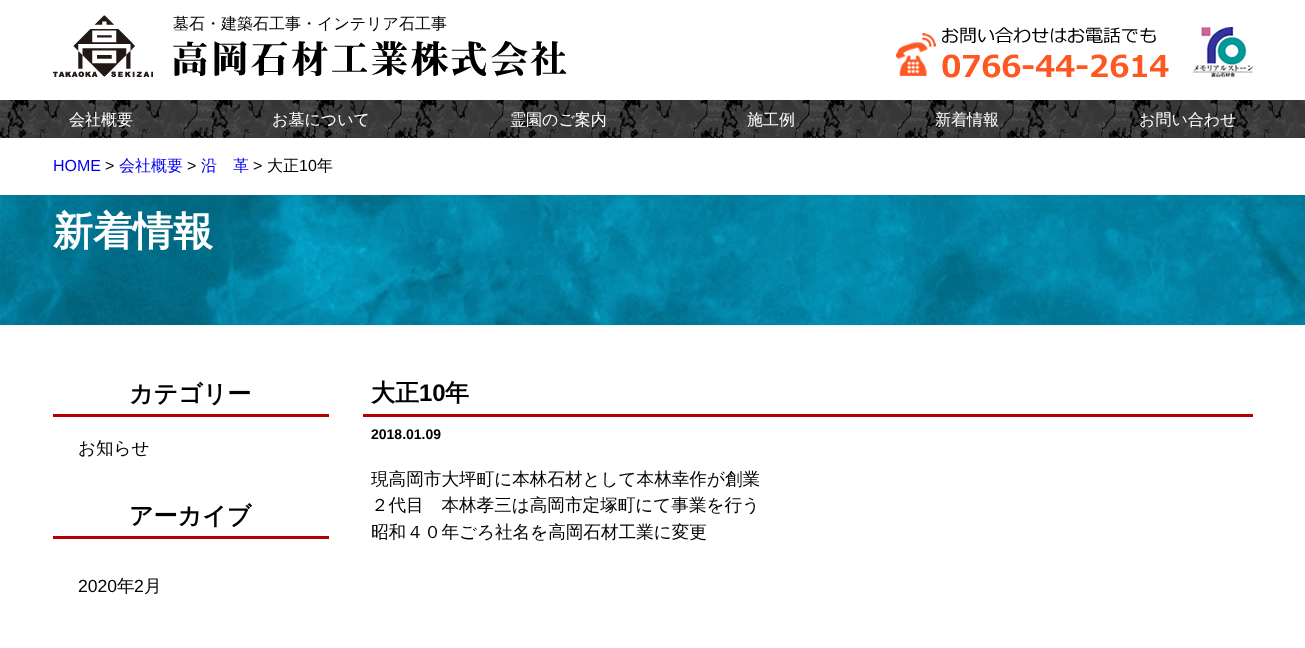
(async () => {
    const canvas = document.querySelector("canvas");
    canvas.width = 1305;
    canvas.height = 648;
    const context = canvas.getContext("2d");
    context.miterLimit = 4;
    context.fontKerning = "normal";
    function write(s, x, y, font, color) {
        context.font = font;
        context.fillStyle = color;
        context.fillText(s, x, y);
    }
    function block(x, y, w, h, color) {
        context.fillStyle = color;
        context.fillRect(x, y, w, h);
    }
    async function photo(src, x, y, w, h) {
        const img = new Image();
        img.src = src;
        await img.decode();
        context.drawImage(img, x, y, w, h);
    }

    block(0, 0, 1305, 648, "rgb(255, 255, 255)");
    await photo("media/1.png", 53, 15, 100, 62);
    write("墓石・建築石工事・インテリア石工事", 173, 29, "500 16px WenQuanYi Zen Hei", "rgb(0, 0, 0)");
    await photo("media/2.png", 173, 40, 394, 37);
    await photo("media/3.png", 896, 27, 273, 51);
    await photo("media/4.png", 1193, 27, 60, 51);
    await photo("media/5.png", 0, 100, 1305, 38);
    write("会社概要", 69, 125, "500 16px WenQuanYi Zen Hei", "rgb(255, 255, 255)");
    write("お墓について", 272, 125, "500 16px WenQuanYi Zen Hei", "rgb(255, 255, 255)");
    write("霊園のご案内", 510, 125, "500 16px WenQuanYi Zen Hei", "rgb(255, 255, 255)");
    write("施工例", 747, 125, "500 16px WenQuanYi Zen Hei", "rgb(255, 255, 255)");
    write("新着情報", 935, 125, "500 16px WenQuanYi Zen Hei", "rgb(255, 255, 255)");
    write("お問い合わせ", 1139, 125, "500 16px WenQuanYi Zen Hei", "rgb(255, 255, 255)");
    write("HOME", 53, 171, "16px Liberation Sans", "rgb(0, 0, 238)");
    write(">", 105, 171, "16px Liberation Sans", "rgb(0, 0, 0)");
    write("会社概要", 119, 171, "500 16px WenQuanYi Zen Hei", "rgb(0, 0, 238)");
    write(">", 187, 171, "16px Liberation Sans", "rgb(0, 0, 0)");
    write("沿　革", 201, 171, "500 16px WenQuanYi Zen Hei", "rgb(0, 0, 238)");
    write(">", 253, 171, "16px Liberation Sans", "rgb(0, 0, 0)");
    write("大正", 267, 171, "500 16px WenQuanYi Zen Hei", "rgb(0, 0, 0)");
    write("10", 299, 171, "16px Liberation Sans", "rgb(0, 0, 0)");
    write("年", 317, 171, "500 16px WenQuanYi Zen Hei", "rgb(0, 0, 0)");
    await photo("media/6.png", 0, 195, 1305, 130);
    write("新着情報", 53, 245, "bold 40px WenQuanYi Zen Hei", "rgb(255, 255, 255)");
    block(53, 414, 276, 3, "rgb(178, 0, 0)");
    write("カテゴリー", 129, 402, "bold 24px WenQuanYi Zen Hei", "rgb(0, 0, 0)");
    write("お知らせ", 78, 454, "500 17.6px WenQuanYi Zen Hei", "rgb(0, 0, 0)");
    block(53, 536, 276, 3, "rgb(178, 0, 0)");
    write("アーカイブ", 129, 524, "bold 24px WenQuanYi Zen Hei", "rgb(0, 0, 0)");
    write("2020", 78, 592, "17.6px Liberation Sans", "rgb(0, 0, 0)");
    write("年", 117, 592, "500 17.6px WenQuanYi Zen Hei", "rgb(0, 0, 0)");
    write("2", 134, 592, "17.6px Liberation Sans", "rgb(0, 0, 0)");
    write("月", 144, 592, "500 17.6px WenQuanYi Zen Hei", "rgb(0, 0, 0)");
    block(363, 414, 890, 3, "rgb(178, 0, 0)");
    write("大正", 371, 401, "bold 24px WenQuanYi Zen Hei", "rgb(0, 0, 0)");
    write("10", 419, 401, "bold 24px Liberation Sans", "rgb(0, 0, 0)");
    write("年", 445, 401, "bold 24px WenQuanYi Zen Hei", "rgb(0, 0, 0)");
    write("2018.01.09", 371, 439, "bold 14px Liberation Sans", "rgb(0, 0, 0)");
    write("現高岡市大坪町に本林石材として本林幸作が創業", 371, 485, "500 17.6px WenQuanYi Zen Hei", "rgb(0, 0, 0)");
    write("２代目　本林孝三は高岡市定塚町にて事業を行う", 371, 511, "500 17.6px WenQuanYi Zen Hei", "rgb(0, 0, 0)");
    write("昭和４０年ごろ社名を高岡石材工業に変更", 371, 538, "500 17.6px WenQuanYi Zen Hei", "rgb(0, 0, 0)");
})();
